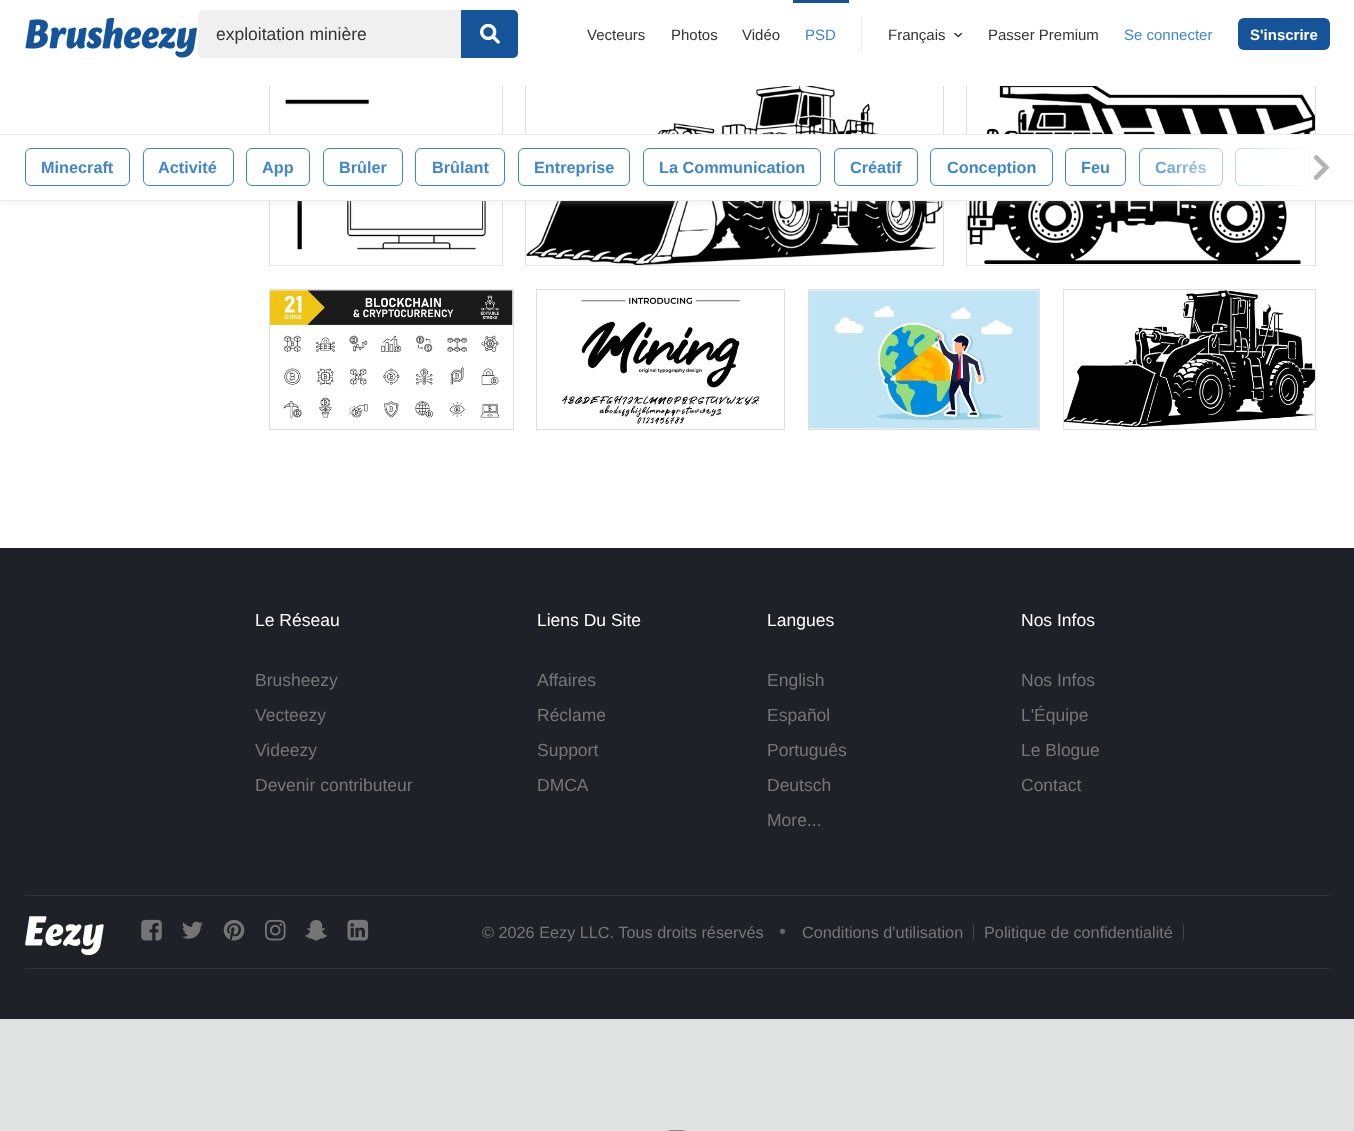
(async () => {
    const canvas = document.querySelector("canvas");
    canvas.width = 1354;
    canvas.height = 1131;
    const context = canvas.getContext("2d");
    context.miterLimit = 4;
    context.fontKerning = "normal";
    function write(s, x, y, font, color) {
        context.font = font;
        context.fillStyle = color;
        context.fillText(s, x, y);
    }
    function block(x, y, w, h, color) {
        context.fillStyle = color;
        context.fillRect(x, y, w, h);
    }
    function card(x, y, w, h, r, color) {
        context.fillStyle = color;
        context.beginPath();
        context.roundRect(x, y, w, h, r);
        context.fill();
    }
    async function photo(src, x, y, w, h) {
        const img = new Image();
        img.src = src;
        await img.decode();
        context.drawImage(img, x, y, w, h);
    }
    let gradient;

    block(0, 0, 1354, 1131, "rgb(255, 255, 255)");
    context.strokeStyle = "rgb(223, 223, 223)";
    context.strokeRect(269.5, 83.5, 233, 182);
    context.strokeRect(525.5, 83.5, 418, 182);
    context.strokeRect(966.5, 83.5, 349, 182);
    block(269, 83, 1047, 3, "rgb(255, 255, 255)");
    await photo("media/1.png", 25, 18, 172, 40);
    card(198, 10, 320, 48, 5, "rgb(240, 240, 240)");
    write("exploitation minière", 216, 40, "17.5px Liberation Sans", "rgb(51, 51, 51)");
    context.fillStyle = "rgb(21, 84, 153)";
    context.beginPath();
    context.roundRect(461, 10, 57, 48, [0, 5, 5, 0]);
    context.fill();
    await photo("media/2.png", 480, 24, 20, 20);
    write("Vecteurs", 587, 40, "15px Liberation Sans", "rgb(51, 51, 51)");
    write("Photos", 671, 40, "15px Liberation Sans", "rgb(51, 51, 51)");
    write("Vidéo", 742, 40, "15px Liberation Sans", "rgb(51, 51, 51)");
    block(793, 0, 56, 3, "rgb(21, 84, 153)");
    write("PSD", 805, 40, "15px Liberation Sans", "rgb(63, 134, 202)");
    block(861, 16, 1, 35, "rgb(232, 232, 232)");
    write("Français", 888, 40, "15px Liberation Sans", "rgb(51, 51, 51)");
    await photo("media/3.png", 954, 33, 9, 5);
    write("Passer Premium", 988, 40, "15px Liberation Sans", "rgb(51, 51, 51)");
    write("Se connecter", 1124, 40, "15px Liberation Sans", "rgb(63, 134, 202)");
    card(1238, 18, 92, 32, 6, "rgb(21, 84, 153)");
    write("S'inscrire", 1250, 40, "bold 15px Liberation Sans", "rgb(255, 255, 255)");
    await photo("media/5.png", 270, 98, 231, 168);
    await photo("media/6.png", 526, 86, 417, 180);
    await photo("media/7.png", 967, 86, 348, 180);
    context.fillStyle = "rgba(204, 204, 204, 0.2)";
    context.filter = "blur(2px)";
    context.beginPath();
    context.rect(0, 136, 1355, 68);
    context.fill();
    context.filter = "none";
    block(0, 135, 1354, 65, "rgb(255, 255, 255)");
    block(0, 134, 1354, 1, "rgb(232, 232, 232)");
    block(0, 200, 1354, 1, "rgb(235, 235, 235)");
    context.beginPath();
    context.roundRect(25.5, 148.5, 104, 37, 5.5);
    context.strokeStyle = "rgb(63, 134, 202)";
    context.stroke();
    write("Minecraft", 41, 173, "bold 16.25px Liberation Sans", "rgb(63, 134, 202)");
    context.beginPath();
    context.roundRect(143.5, 148.5, 90, 37, 5.5);
    context.stroke();
    write("Activité", 158, 173, "bold 16.25px Liberation Sans", "rgb(63, 134, 202)");
    context.beginPath();
    context.roundRect(246.5, 148.5, 63, 37, 5.5);
    context.stroke();
    write("App", 262, 173, "bold 16.25px Liberation Sans", "rgb(63, 134, 202)");
    context.beginPath();
    context.roundRect(323.5, 148.5, 79, 37, 5.5);
    context.stroke();
    write("Brûler", 339, 173, "bold 16.25px Liberation Sans", "rgb(63, 134, 202)");
    context.beginPath();
    context.roundRect(415.5, 148.5, 89, 37, 5.5);
    context.stroke();
    write("Brûlant", 432, 173, "bold 16.25px Liberation Sans", "rgb(63, 134, 202)");
    context.beginPath();
    context.roundRect(518.5, 148.5, 111, 37, 5.5);
    context.stroke();
    write("Entreprise", 534, 173, "bold 16.25px Liberation Sans", "rgb(63, 134, 202)");
    context.beginPath();
    context.roundRect(643.5, 148.5, 177, 37, 5.5);
    context.stroke();
    write("La Communication", 659, 173, "bold 16.25px Liberation Sans", "rgb(63, 134, 202)");
    context.beginPath();
    context.roundRect(834.5, 148.5, 83, 37, 5.5);
    context.stroke();
    write("Créatif", 850, 173, "bold 16.25px Liberation Sans", "rgb(63, 134, 202)");
    context.beginPath();
    context.roundRect(930.5, 148.5, 122, 37, 5.5);
    context.stroke();
    write("Conception", 947, 173, "bold 16.25px Liberation Sans", "rgb(63, 134, 202)");
    context.beginPath();
    context.roundRect(1065.5, 148.5, 60, 37, 5.5);
    context.stroke();
    write("Feu", 1081, 173, "bold 16.25px Liberation Sans", "rgb(63, 134, 202)");
    context.beginPath();
    context.roundRect(1139.5, 148.5, 83, 37, 5.5);
    context.stroke();
    write("Carrés", 1155, 173, "bold 16.25px Liberation Sans", "rgb(63, 134, 202)");
    context.beginPath();
    context.roundRect(1235.5, 148.5, 74, 37, 5.5);
    context.stroke();
    context.save();
    context.beginPath();
    context.rect(25, 148, 1305, 55);
    context.clip();
    context.beginPath();
    context.roundRect(1323.5, 148.5, 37, 37, 5.5);
    context.stroke();
    context.restore();
    gradient = context.createLinearGradient(1118, 167, 1330, 167);
    gradient.addColorStop(0, "rgba(255, 255, 255, 0)");
    gradient.addColorStop(0.75, "rgba(255, 255, 255, 0.9)");
    gradient.addColorStop(1, "rgb(255, 255, 255)");
    context.fillStyle = gradient;
    context.fillRect(1122, 148, 208, 38);
    await photo("media/4.png", 1314, 155, 16, 25);
    context.strokeStyle = "rgb(223, 223, 223)";
    context.strokeRect(269.5, 289.5, 244, 140);
    await photo("media/8.png", 270, 290, 243, 128);
    context.strokeRect(536.5, 289.5, 248, 140);
    await photo("media/9.png", 562, 297, 198, 127);
    context.strokeRect(808.5, 289.5, 231, 140);
    await photo("media/10.png", 809, 290, 230, 139);
    context.strokeRect(1063.5, 289.5, 252, 140);
    await photo("media/11.png", 1063, 290, 252, 137);
    block(0, 548, 1354, 471, "rgb(30, 33, 40)");
    write("Le Réseau", 255, 626, "17.5px Liberation Sans", "rgb(255, 255, 255)");
    write("Brusheezy", 255, 686, "17.5px Liberation Sans", "rgb(119, 119, 119)");
    write("Vecteezy", 255, 721, "17.5px Liberation Sans", "rgb(119, 119, 119)");
    write("Videezy", 255, 756, "17.5px Liberation Sans", "rgb(119, 119, 119)");
    write("Devenir contributeur", 255, 791, "17.5px Liberation Sans", "rgb(119, 119, 119)");
    write("Liens Du Site", 537, 626, "17.5px Liberation Sans", "rgb(255, 255, 255)");
    write("Affaires", 537, 686, "17.5px Liberation Sans", "rgb(119, 119, 119)");
    write("Réclame", 537, 721, "17.5px Liberation Sans", "rgb(119, 119, 119)");
    write("Support", 537, 756, "17.5px Liberation Sans", "rgb(119, 119, 119)");
    write("DMCA", 537, 791, "17.5px Liberation Sans", "rgb(119, 119, 119)");
    write("Langues", 767, 626, "17.5px Liberation Sans", "rgb(255, 255, 255)");
    write("English", 767, 686, "17.5px Liberation Sans", "rgb(119, 119, 119)");
    write("Español", 767, 721, "17.5px Liberation Sans", "rgb(119, 119, 119)");
    write("Português", 767, 756, "17.5px Liberation Sans", "rgb(119, 119, 119)");
    write("Deutsch", 767, 791, "17.5px Liberation Sans", "rgb(119, 119, 119)");
    write("More...", 767, 826, "17.5px Liberation Sans", "rgb(119, 119, 119)");
    write("Nos Infos", 1021, 626, "17.5px Liberation Sans", "rgb(255, 255, 255)");
    write("Nos Infos", 1021, 686, "17.5px Liberation Sans", "rgb(119, 119, 119)");
    write("L'Équipe", 1021, 721, "17.5px Liberation Sans", "rgb(119, 119, 119)");
    write("Le Blogue", 1021, 756, "17.5px Liberation Sans", "rgb(119, 119, 119)");
    write("Contact", 1021, 791, "17.5px Liberation Sans", "rgb(119, 119, 119)");
    block(25, 895, 1305, 1, "rgb(48, 51, 57)");
    block(25, 968, 1305, 1, "rgb(48, 51, 57)");
    await photo("media/12.png", 25, 916, 79, 39);
    await photo("media/13.png", 141, 919, 21, 22);
    await photo("media/14.png", 182, 921, 21, 18);
    await photo("media/15.png", 223, 919, 22, 22);
    await photo("media/16.png", 265, 919, 21, 22);
    await photo("media/17.png", 305, 919, 22, 22);
    await photo("media/18.png", 347, 919, 22, 22);
    write("© 2026 Eezy LLC. Tous droits réservés", 482, 938, "16.25px Liberation Sans", "rgb(119, 119, 119)");
    write("•", 779, 938, "20px Liberation Sans", "rgb(102, 102, 102)");
    block(973, 924, 1, 16, "rgb(68, 68, 68)");
    write("Conditions d'utilisation", 802, 938, "16.25px Liberation Sans", "rgb(119, 119, 119)");
    block(1183, 924, 1, 16, "rgb(68, 68, 68)");
    write("Politique de confidentialité", 984, 938, "16.25px Liberation Sans", "rgb(119, 119, 119)");
    block(0, 1019, 1354, 112, "rgb(225, 226, 226)");
    context.beginPath();
    context.roundRect(663.5, 1130.5, 26, 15, 13);
    context.strokeStyle = "rgb(242, 242, 242)";
    context.stroke();
    context.beginPath();
    context.roundRect(663.5, 1130.5, 26, 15, 13);
    context.strokeStyle = "rgb(136, 136, 136)";
    context.stroke();
})();
